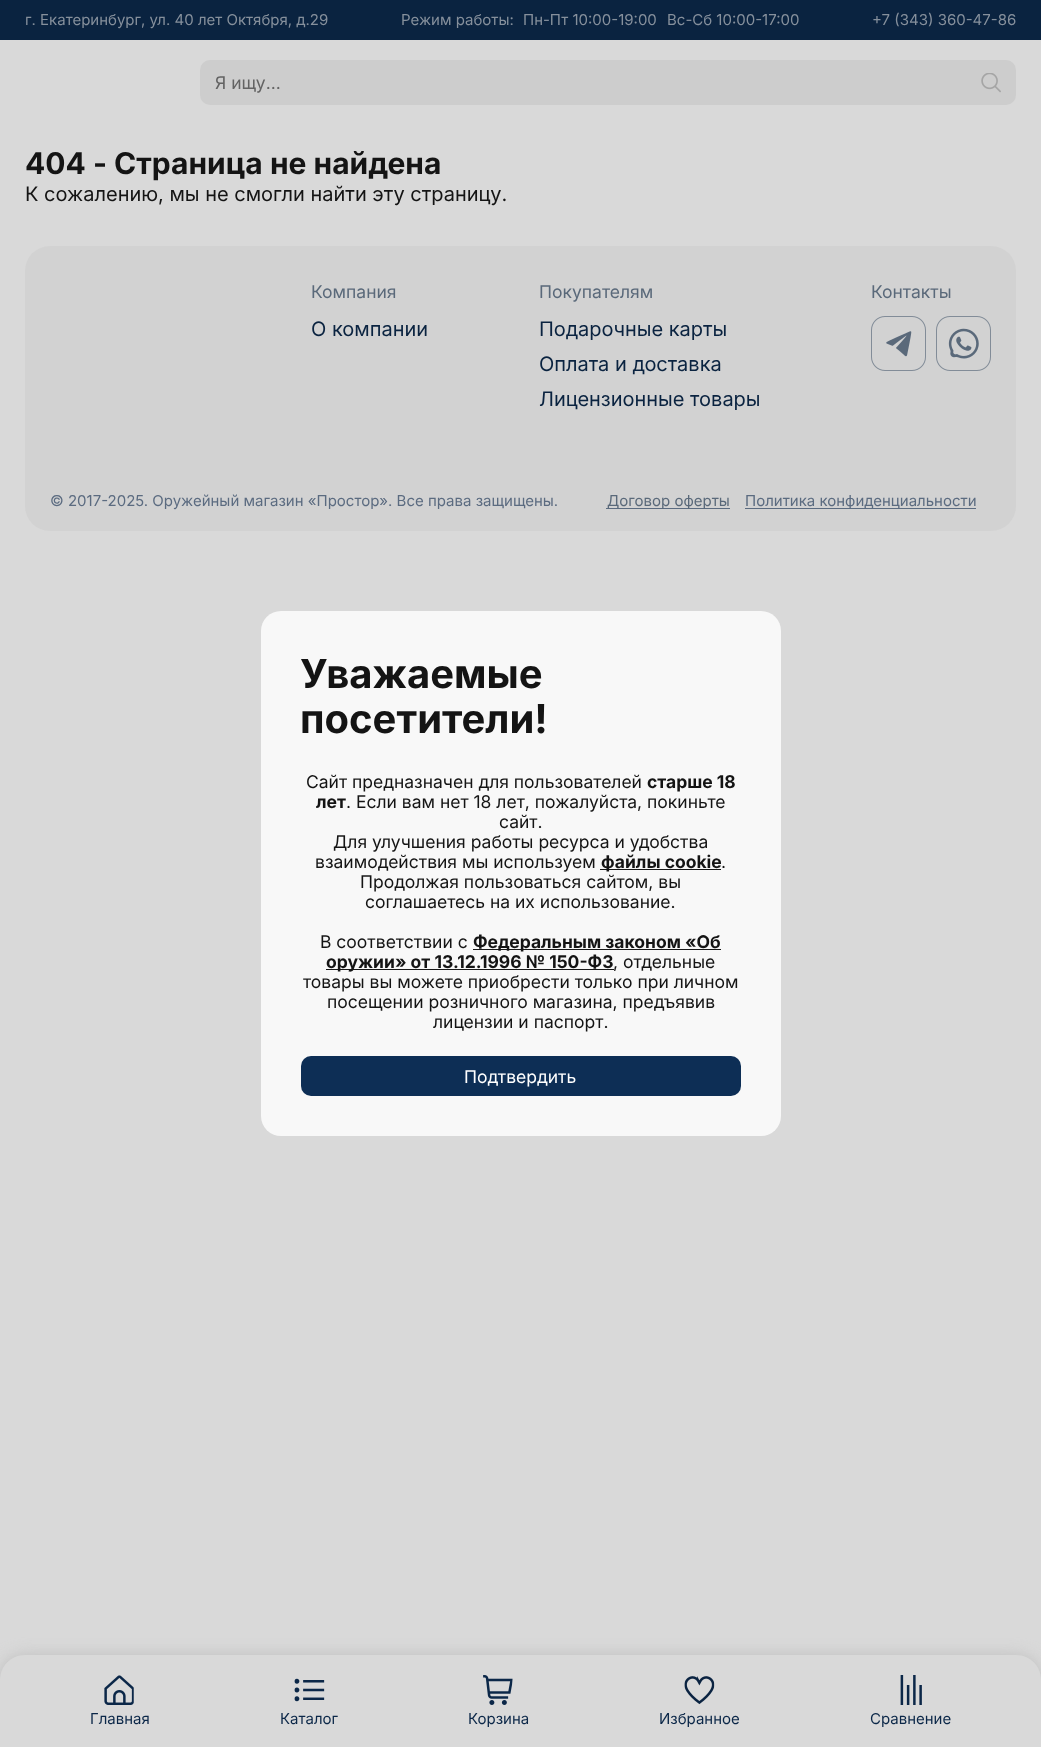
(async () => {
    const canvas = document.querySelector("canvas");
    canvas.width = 1041;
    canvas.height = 1747;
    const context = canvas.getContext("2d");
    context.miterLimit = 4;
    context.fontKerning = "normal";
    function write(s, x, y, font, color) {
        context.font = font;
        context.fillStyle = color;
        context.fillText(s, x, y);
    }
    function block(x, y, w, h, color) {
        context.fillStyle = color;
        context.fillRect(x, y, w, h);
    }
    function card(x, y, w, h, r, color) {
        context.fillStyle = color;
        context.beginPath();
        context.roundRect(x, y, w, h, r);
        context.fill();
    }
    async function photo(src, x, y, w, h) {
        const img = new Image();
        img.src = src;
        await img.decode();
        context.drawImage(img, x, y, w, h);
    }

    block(0, 0, 1041, 1747, "rgb(217, 217, 217)");
    block(0, 0, 1041, 40, "rgb(10, 35, 64)");
    write("г. Екатеринбург, ул. 40 лет Октября, д.29", 25, 25, "15px Inter", "rgb(134, 144, 156)");
    write("Режим работы:", 401, 25, "15px Inter", "rgb(134, 144, 156)");
    write("Пн-Пт 10:00-19:00", 523, 25, "15px Inter", "rgb(134, 144, 156)");
    write("Вс-Сб 10:00-17:00", 667, 25, "15px Inter", "rgb(134, 144, 156)");
    write("+7 (343) 360-47-86", 872, 25, "15px Inter", "rgb(134, 144, 156)");
    card(200, 60, 816, 45, 10, "rgb(205, 205, 205)");
    write("Я ищу...", 215, 89, "17.5px Inter", "rgb(99, 99, 99)");
    await photo("media/1.png", 981, 73, 20, 20);
    write("404 - Страница не найдена", 25, 174, "bold 30px Inter", "rgb(20, 20, 20)");
    write("К сожалению, мы не смогли найти эту страницу.", 25, 201, "20px Inter", "rgb(20, 20, 20)");
    card(25, 246, 991, 285, 25, "rgb(210, 210, 210)");
    write("Компания", 311, 298, "17.5px Inter", "rgb(90, 105, 122)");
    write("О компании", 311, 336, "20px Inter", "rgb(10, 35, 64)");
    write("Покупателям", 539, 298, "17.5px Inter", "rgb(90, 105, 122)");
    write("Подарочные карты", 539, 336, "20px Inter", "rgb(10, 35, 64)");
    write("Оплата и доставка", 539, 371, "20px Inter", "rgb(10, 35, 64)");
    write("Лицензионные товары", 539, 406, "20px Inter", "rgb(10, 35, 64)");
    write("Контакты", 871, 298, "17.5px Inter", "rgb(90, 105, 122)");
    await photo("media/2.png", 871, 316, 55, 55);
    await photo("media/3.png", 936, 316, 55, 55);
    write("© 2017-2025. Оружейный магазин «Простор». Все права защищены.", 50, 506, "15px Inter", "rgb(91, 107, 128)");
    block(606, 508, 124, 1, "rgb(91, 107, 128)");
    write("Договор оферты", 607, 506, "15px Inter", "rgb(90, 105, 122)");
    block(745, 508, 231, 1, "rgb(91, 107, 128)");
    write("Политика конфиденциальности", 745, 506, "15px Inter", "rgb(91, 107, 128)");
    card(261, 611, 520, 525, 20, "rgb(248, 248, 248)");
    write("Уважаемые", 300, 688, "bold 40px Inter", "rgb(20, 20, 20)");
    write("посетители!", 300, 733, "bold 40px Inter", "rgb(20, 20, 20)");
    write("Сайт предназначен для пользователей", 306, 788, "17.5px Inter", "rgb(20, 20, 20)");
    write("старше 18", 647, 788, "bold 17.5px Inter", "rgb(20, 20, 20)");
    write("лет", 316, 808, "bold 17.5px Inter", "rgb(20, 20, 20)");
    write(". Если вам нет 18 лет, пожалуйста, покиньте", 346, 808, "17.5px Inter", "rgb(20, 20, 20)");
    write("сайт.", 499, 828, "17.5px Inter", "rgb(20, 20, 20)");
    write("Для улучшения работы ресурса и удобства", 333, 848, "17.5px Inter", "rgb(20, 20, 20)");
    write("взаимодействия мы используем", 315, 868, "17.5px Inter", "rgb(20, 20, 20)");
    block(600, 869, 121, 1, "rgb(23, 23, 23)");
    write("файлы cookie", 601, 868, "bold 17.5px Inter", "rgb(20, 20, 20)");
    write(".", 721, 868, "17.5px Inter", "rgb(20, 20, 20)");
    write("Продолжая пользоваться сайтом, вы", 360, 888, "17.5px Inter", "rgb(20, 20, 20)");
    write("соглашаетесь на их использование.", 365, 908, "17.5px Inter", "rgb(20, 20, 20)");
    write("В соответствии с", 320, 948, "17.5px Inter", "rgb(20, 20, 20)");
    block(473, 949, 248, 1, "rgb(23, 23, 23)");
    write("Федеральным законом «Об", 473, 948, "bold 17.5px Inter", "rgb(20, 20, 20)");
    block(326, 969, 288, 1, "rgb(23, 23, 23)");
    write("оружии» от 13.12.1996 № 150-ФЗ", 326, 968, "bold 17.5px Inter", "rgb(20, 20, 20)");
    write(", отдельные", 613, 968, "17.5px Inter", "rgb(20, 20, 20)");
    write("товары вы можете приобрести только при личном", 303, 988, "17.5px Inter", "rgb(20, 20, 20)");
    write("посещении розничного магазина, предъявив", 327, 1008, "17.5px Inter", "rgb(20, 20, 20)");
    write("лицензии и паспорт.", 433, 1028, "17.5px Inter", "rgb(20, 20, 20)");
    card(301, 1056, 440, 40, 10, "rgb(13, 46, 85)");
    write("Подтвердить", 464, 1083, "17.5px Inter", "rgb(255, 255, 255)");
    context.fillStyle = "rgb(191, 191, 191)";
    context.filter = "blur(7.5px)";
    context.beginPath();
    context.roundRect(0, 1655, 1041, 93, 25);
    context.fill();
    context.filter = "none";
    context.fillStyle = "rgb(217, 217, 217)";
    context.beginPath();
    context.moveTo(25, 1655);
    context.lineTo(1016, 1655);
    context.bezierCurveTo(1030, 1655, 1041, 1666, 1041, 1680);
    context.lineTo(1041, 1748);
    context.lineTo(0, 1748);
    context.lineTo(0, 1680);
    context.bezierCurveTo(0, 1666, 11, 1655, 25, 1655);
    context.closePath();
    context.fill();
    await photo("media/4.png", 104, 1675, 30, 30);
    write("Главная", 90, 1724, "15px Inter", "rgb(11, 39, 72)");
    await photo("media/5.png", 294, 1678, 31, 24);
    write("Каталог", 280, 1724, "15px Inter", "rgb(11, 39, 72)");
    await photo("media/6.png", 483, 1675, 30, 30);
    write("Корзина", 468, 1724, "15px Inter", "rgb(11, 39, 72)");
    await photo("media/7.png", 684, 1676, 31, 29);
    write("Избранное", 659, 1724, "15px Inter", "rgb(11, 39, 72)");
    await photo("media/8.png", 900, 1675, 22, 30);
    write("Сравнение", 870, 1724, "15px Inter", "rgb(11, 39, 72)");
})();
